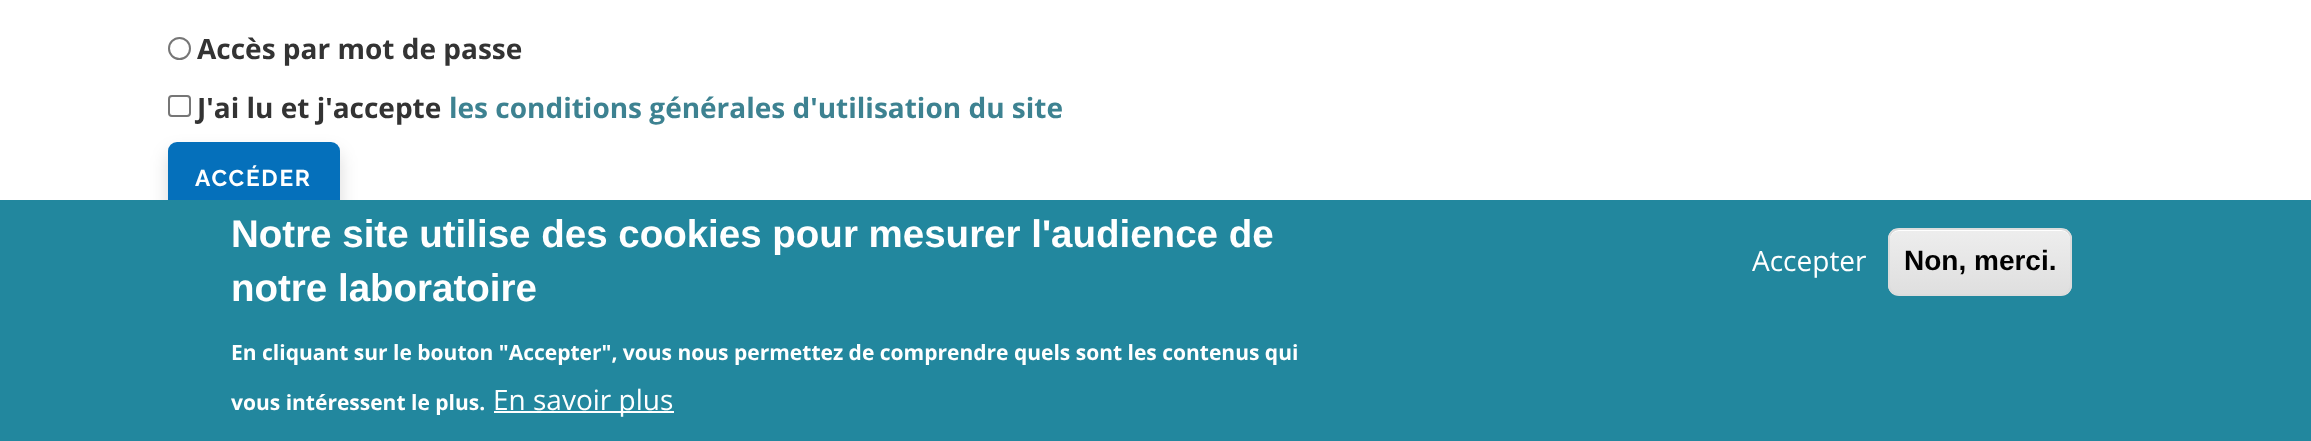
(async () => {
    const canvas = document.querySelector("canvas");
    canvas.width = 2311;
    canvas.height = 441;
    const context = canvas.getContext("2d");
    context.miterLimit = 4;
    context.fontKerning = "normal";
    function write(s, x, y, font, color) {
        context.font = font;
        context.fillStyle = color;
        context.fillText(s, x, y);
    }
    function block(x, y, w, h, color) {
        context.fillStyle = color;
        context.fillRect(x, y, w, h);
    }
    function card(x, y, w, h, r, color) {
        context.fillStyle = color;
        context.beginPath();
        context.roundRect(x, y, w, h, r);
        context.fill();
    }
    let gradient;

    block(0, 0, 2311, 441, "rgb(255, 255, 255)");
    context.beginPath();
    context.arc(179.5, 48.5, 10.5, 0, Math.PI * 2);
    context.strokeStyle = "rgb(118, 118, 118)";
    context.lineWidth = 2;
    context.stroke();
    write("Accès par mot de passe", 197, 59, "bold 28px Open Sans", "rgb(51, 51, 51)");
    context.beginPath();
    context.roundRect(169, 96, 21, 20, 3);
    context.stroke();
    write("J'ai lu et j'accepte", 197, 118, "bold 28px Open Sans", "rgb(51, 51, 51)");
    write("les conditions générales d'utilisation du site", 449, 118, "bold 28px Open Sans", "rgb(61, 130, 145)");
    context.fillStyle = "rgba(0, 0, 0, 0.15)";
    context.filter = "blur(9px)";
    context.beginPath();
    context.roundRect(168, 152, 172, 74, 9);
    context.fill();
    context.filter = "none";
    card(168, 142, 172, 73, 9, "rgb(5, 112, 187)");
    context.letterSpacing = "1.75px";
    write("ACCÉDER", 195, 186, "bold 22.75px Raleway", "rgb(255, 255, 255)");
    block(0, 200, 2311, 241, "rgb(34, 135, 158)");
    context.letterSpacing = "0px";
    write("Notre site utilise des cookies pour mesurer l'audience de", 231, 247, "bold 38.5px Liberation Sans", "rgb(255, 255, 255)");
    write("notre laboratoire", 231, 301, "bold 38.5px Liberation Sans", "rgb(255, 255, 255)");
    write("En cliquant sur le bouton \"Accepter\", vous nous permettez de comprendre quels sont les contenus qui", 231, 360, "bold 21px Open Sans", "rgb(255, 255, 255)");
    write("vous intéressent le plus.", 231, 410, "bold 21px Open Sans", "rgb(255, 255, 255)");
    block(494, 411, 180, 2, "rgb(255, 255, 255)");
    write("En savoir plus", 493, 410, "28px Open Sans", "rgb(255, 255, 255)");
    write("Accepter", 1752, 271, "28px Open Sans", "rgb(255, 255, 255)");
    context.save();
    context.beginPath();
    context.roundRect(1888, 228, 184, 68, 11);
    context.clip();
    gradient = context.createLinearGradient(1980, 229, 1980, 294);
    gradient.addColorStop(0.05, "rgb(237, 237, 237)");
    gradient.addColorStop(1, "rgb(223, 223, 223)");
    context.fillStyle = gradient;
    context.fillRect(1888, 229, 184, 65);
    context.restore();
    context.beginPath();
    context.moveTo(1899, 231);
    context.lineTo(2062, 231);
    context.bezierCurveTo(2066, 231, 2070, 235, 2070, 240);
    context.lineTo(2070, 238);
    context.bezierCurveTo(2070, 233, 2066, 229, 2061, 229);
    context.lineTo(1899, 229);
    context.bezierCurveTo(1894, 229, 1890, 233, 1890, 238);
    context.lineTo(1890, 240);
    context.bezierCurveTo(1890, 235, 1894, 231, 1899, 231);
    context.closePath();
    context.fill();
    context.beginPath();
    context.roundRect(1889, 229, 182, 66, 10);
    context.strokeStyle = "rgb(220, 220, 220)";
    context.stroke();
    write("Non, merci.", 1904, 270, "bold 28px Liberation Sans", "rgb(0, 0, 0)");
})();
